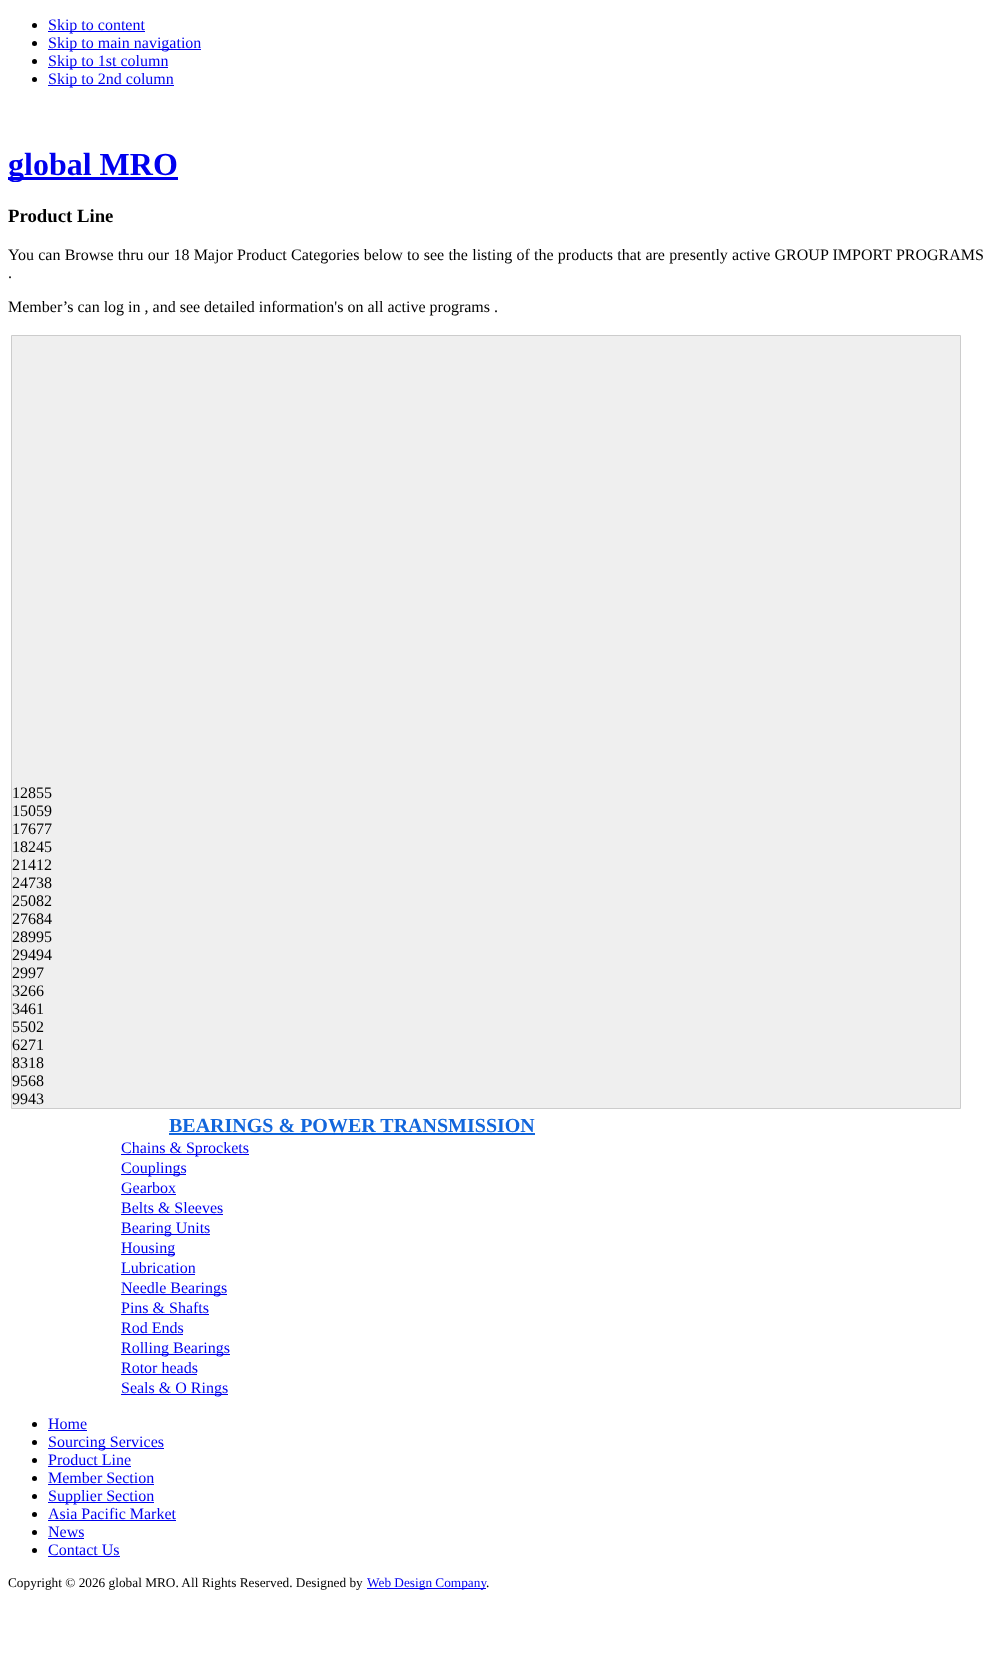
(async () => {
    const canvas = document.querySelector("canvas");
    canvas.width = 992;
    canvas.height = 1657;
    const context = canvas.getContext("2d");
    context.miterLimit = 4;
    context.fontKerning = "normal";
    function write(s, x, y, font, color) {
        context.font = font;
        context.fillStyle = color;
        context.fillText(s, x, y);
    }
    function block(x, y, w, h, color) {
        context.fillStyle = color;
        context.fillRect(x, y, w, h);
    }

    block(0, 0, 992, 1657, "rgb(255, 255, 255)");
    context.fillStyle = "rgb(0, 0, 0)";
    context.beginPath();
    context.arc(34.5, 25.5, 2.5, 0, Math.PI * 2);
    context.fill();
    block(48, 31, 97, 1, "rgb(0, 0, 238)");
    write("Skip to content", 48, 30, "16px Liberation Serif", "rgb(0, 0, 238)");
    context.fillStyle = "rgb(0, 0, 0)";
    context.beginPath();
    context.arc(34.5, 43.5, 2.5, 0, Math.PI * 2);
    context.fill();
    block(48, 49, 153, 1, "rgb(0, 0, 238)");
    write("Skip to main navigation", 48, 48, "16px Liberation Serif", "rgb(0, 0, 238)");
    context.fillStyle = "rgb(0, 0, 0)";
    context.beginPath();
    context.arc(34.5, 61.5, 2.5, 0, Math.PI * 2);
    context.fill();
    block(48, 67, 120, 1, "rgb(0, 0, 238)");
    write("Skip to 1st column", 48, 66, "16px Liberation Serif", "rgb(0, 0, 238)");
    context.fillStyle = "rgb(0, 0, 0)";
    context.beginPath();
    context.arc(34.5, 79.5, 2.5, 0, Math.PI * 2);
    context.fill();
    block(48, 85, 126, 1, "rgb(0, 0, 238)");
    write("Skip to 2nd column", 48, 84, "16px Liberation Serif", "rgb(0, 0, 238)");
    block(8, 177, 170, 3, "rgb(0, 0, 238)");
    write("global MRO", 8, 175, "bold 32px Liberation Serif", "rgb(0, 0, 238)");
    write("Product Line", 8, 222, "bold 18.75px Liberation Serif", "rgb(0, 0, 0)");
    context.wordSpacing = "0.25px";
    write("You can Browse thru our 18 Major Product Categories below to see the listing of the products that are presently active GROUP IMPORT PROGRAMS", 8, 260, "16px Liberation Serif", "rgb(0, 0, 0)");
    context.wordSpacing = "0px";
    write(".", 8, 278, "16px Liberation Serif", "rgb(0, 0, 0)");
    write("Member’s can log in , and see detailed information's on all active programs .", 8, 312, "16px Liberation Serif", "rgb(0, 0, 0)");
    context.fillStyle = "rgb(239, 239, 239)";
    context.beginPath();
    context.rect(11.5, 335.5, 949, 773);
    context.fill();
    context.strokeStyle = "rgb(204, 204, 204)";
    context.stroke();
    write("12855", 12, 798, "16px Liberation Serif", "rgb(0, 0, 0)");
    write("15059", 12, 816, "16px Liberation Serif", "rgb(0, 0, 0)");
    write("17677", 12, 834, "16px Liberation Serif", "rgb(0, 0, 0)");
    write("18245", 12, 852, "16px Liberation Serif", "rgb(0, 0, 0)");
    write("21412", 12, 870, "16px Liberation Serif", "rgb(0, 0, 0)");
    write("24738", 12, 888, "16px Liberation Serif", "rgb(0, 0, 0)");
    write("25082", 12, 906, "16px Liberation Serif", "rgb(0, 0, 0)");
    write("27684", 12, 924, "16px Liberation Serif", "rgb(0, 0, 0)");
    write("28995", 12, 942, "16px Liberation Serif", "rgb(0, 0, 0)");
    write("29494", 12, 960, "16px Liberation Serif", "rgb(0, 0, 0)");
    write("2997", 12, 978, "16px Liberation Serif", "rgb(0, 0, 0)");
    write("3266", 12, 996, "16px Liberation Serif", "rgb(0, 0, 0)");
    write("3461", 12, 1014, "16px Liberation Serif", "rgb(0, 0, 0)");
    write("5502", 12, 1032, "16px Liberation Serif", "rgb(0, 0, 0)");
    write("6271", 12, 1050, "16px Liberation Serif", "rgb(0, 0, 0)");
    write("8318", 12, 1068, "16px Liberation Serif", "rgb(0, 0, 0)");
    write("9568", 12, 1086, "16px Liberation Serif", "rgb(0, 0, 0)");
    write("9943", 12, 1104, "16px Liberation Serif", "rgb(0, 0, 0)");
    write("BEARINGS & POWER TRANSMISSION", 169, 1132, "bold 20px Liberation Serif", "rgb(18, 102, 220)");
    block(169, 1133, 366, 2, "rgb(18, 102, 220)");
    block(121, 1154, 128, 1, "rgb(0, 0, 238)");
    write("Chains & Sprockets", 121, 1153, "16px Liberation Serif", "rgb(0, 0, 238)");
    block(121, 1174, 65, 1, "rgb(0, 0, 238)");
    write("Couplings", 121, 1173, "16px Liberation Serif", "rgb(0, 0, 238)");
    write("Gearbox", 121, 1193, "16px Liberation Serif", "rgb(0, 0, 238)");
    block(121, 1194, 55, 1, "rgb(0, 0, 238)");
    write("Belts & Sleeves", 121, 1213, "16px Liberation Serif", "rgb(0, 0, 238)");
    block(121, 1214, 102, 1, "rgb(0, 0, 238)");
    block(121, 1234, 89, 1, "rgb(0, 0, 238)");
    write("Bearing Units", 121, 1233, "16px Liberation Serif", "rgb(0, 0, 238)");
    block(121, 1254, 54, 1, "rgb(0, 0, 238)");
    write("Housing", 121, 1253, "16px Liberation Serif", "rgb(0, 0, 238)");
    write("Lubrication", 121, 1273, "16px Liberation Serif", "rgb(0, 0, 238)");
    block(121, 1274, 74, 1, "rgb(0, 0, 238)");
    block(121, 1294, 106, 1, "rgb(0, 0, 238)");
    write("Needle Bearings", 121, 1293, "16px Liberation Serif", "rgb(0, 0, 238)");
    write("Pins & Shafts", 121, 1313, "16px Liberation Serif", "rgb(0, 0, 238)");
    block(121, 1314, 88, 1, "rgb(0, 0, 238)");
    write("Rod Ends", 121, 1333, "16px Liberation Serif", "rgb(0, 0, 238)");
    block(121, 1334, 62, 1, "rgb(0, 0, 238)");
    block(121, 1354, 109, 1, "rgb(0, 0, 238)");
    write("Rolling Bearings", 121, 1353, "16px Liberation Serif", "rgb(0, 0, 238)");
    write("Rotor heads", 121, 1373, "16px Liberation Serif", "rgb(0, 0, 238)");
    block(121, 1374, 76, 1, "rgb(0, 0, 238)");
    block(121, 1394, 107, 1, "rgb(0, 0, 238)");
    write("Seals & O Rings", 121, 1393, "16px Liberation Serif", "rgb(0, 0, 238)");
    context.fillStyle = "rgb(0, 0, 0)";
    context.beginPath();
    context.arc(34.5, 1424.5, 2.5, 0, Math.PI * 2);
    context.fill();
    write("Home", 48, 1429, "16px Liberation Serif", "rgb(0, 0, 238)");
    block(48, 1430, 39, 1, "rgb(0, 0, 238)");
    context.fillStyle = "rgb(0, 0, 0)";
    context.beginPath();
    context.arc(34.5, 1442.5, 2.5, 0, Math.PI * 2);
    context.fill();
    block(48, 1448, 116, 1, "rgb(0, 0, 238)");
    write("Sourcing Services", 48, 1447, "16px Liberation Serif", "rgb(0, 0, 238)");
    context.fillStyle = "rgb(0, 0, 0)";
    context.beginPath();
    context.arc(34.5, 1460.5, 2.5, 0, Math.PI * 2);
    context.fill();
    write("Product Line", 48, 1465, "16px Liberation Serif", "rgb(0, 0, 238)");
    block(48, 1466, 83, 1, "rgb(0, 0, 238)");
    context.fillStyle = "rgb(0, 0, 0)";
    context.beginPath();
    context.arc(34.5, 1478.5, 2.5, 0, Math.PI * 2);
    context.fill();
    write("Member Section", 48, 1483, "16px Liberation Serif", "rgb(0, 0, 238)");
    block(48, 1484, 106, 1, "rgb(0, 0, 238)");
    context.fillStyle = "rgb(0, 0, 0)";
    context.beginPath();
    context.arc(34.5, 1496.5, 2.5, 0, Math.PI * 2);
    context.fill();
    block(48, 1502, 106, 1, "rgb(0, 0, 238)");
    write("Supplier Section", 48, 1501, "16px Liberation Serif", "rgb(0, 0, 238)");
    context.fillStyle = "rgb(0, 0, 0)";
    context.beginPath();
    context.arc(34.5, 1514.5, 2.5, 0, Math.PI * 2);
    context.fill();
    write("Asia Pacific Market", 48, 1519, "16px Liberation Serif", "rgb(0, 0, 238)");
    block(48, 1520, 128, 1, "rgb(0, 0, 238)");
    context.fillStyle = "rgb(0, 0, 0)";
    context.beginPath();
    context.arc(34.5, 1532.5, 2.5, 0, Math.PI * 2);
    context.fill();
    write("News", 48, 1537, "16px Liberation Serif", "rgb(0, 0, 238)");
    block(48, 1538, 36, 1, "rgb(0, 0, 238)");
    context.fillStyle = "rgb(0, 0, 0)";
    context.beginPath();
    context.arc(34.5, 1550.5, 2.5, 0, Math.PI * 2);
    context.fill();
    write("Contact Us", 48, 1555, "16px Liberation Serif", "rgb(0, 0, 238)");
    block(48, 1556, 72, 1, "rgb(0, 0, 238)");
    write("Copyright © 2026 global MRO. All Rights Reserved. Designed by", 8, 1587, "13.3px Liberation Serif", "rgb(0, 0, 0)");
    block(367, 1588, 119, 1, "rgb(0, 0, 238)");
    write("Web Design Company", 367, 1587, "13.3px Liberation Serif", "rgb(0, 0, 238)");
    write(".", 486, 1587, "13.3px Liberation Serif", "rgb(0, 0, 0)");
})();
